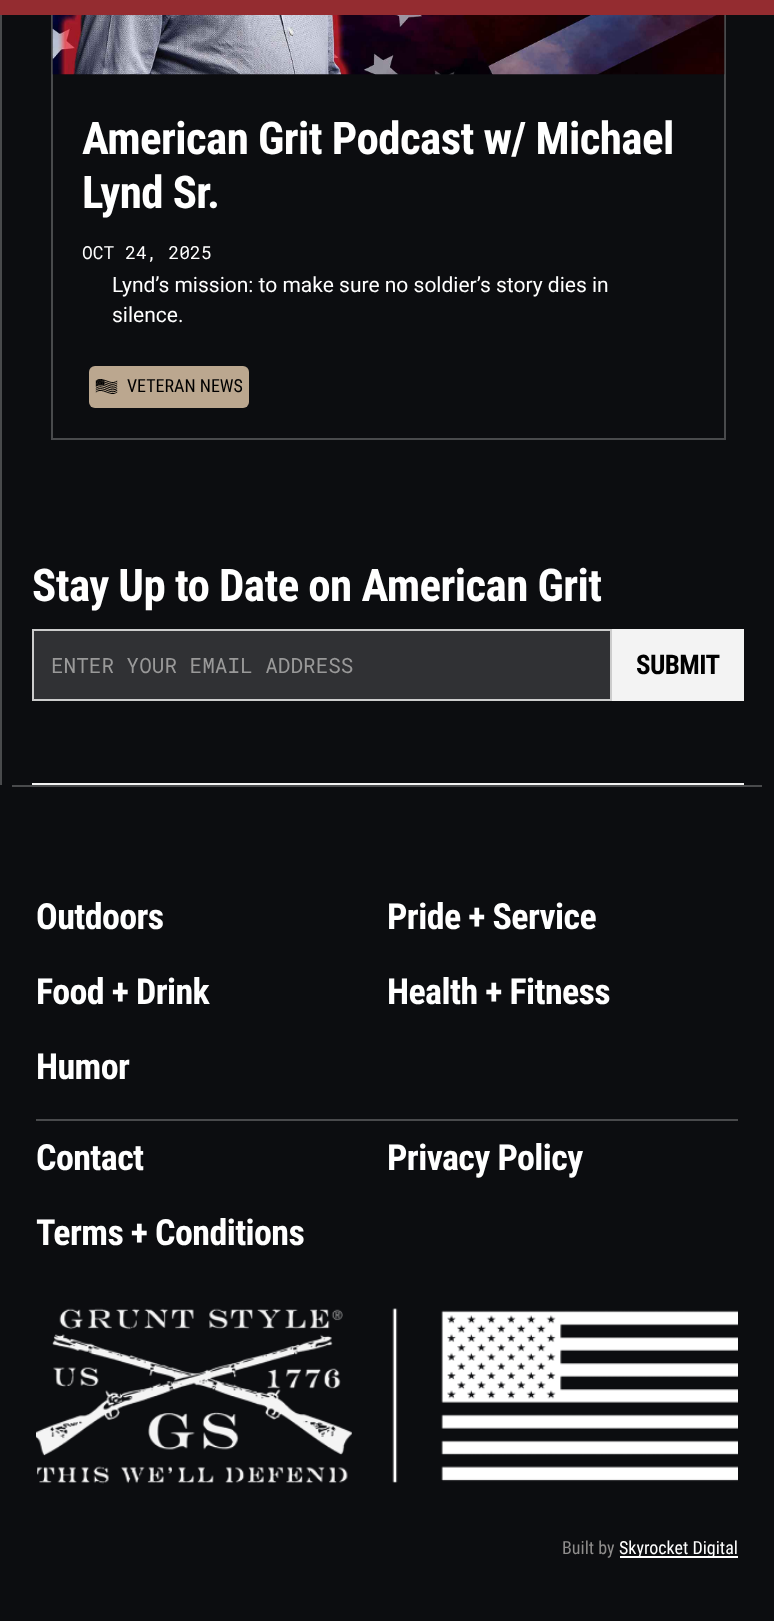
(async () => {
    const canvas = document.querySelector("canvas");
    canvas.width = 774;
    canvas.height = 1621;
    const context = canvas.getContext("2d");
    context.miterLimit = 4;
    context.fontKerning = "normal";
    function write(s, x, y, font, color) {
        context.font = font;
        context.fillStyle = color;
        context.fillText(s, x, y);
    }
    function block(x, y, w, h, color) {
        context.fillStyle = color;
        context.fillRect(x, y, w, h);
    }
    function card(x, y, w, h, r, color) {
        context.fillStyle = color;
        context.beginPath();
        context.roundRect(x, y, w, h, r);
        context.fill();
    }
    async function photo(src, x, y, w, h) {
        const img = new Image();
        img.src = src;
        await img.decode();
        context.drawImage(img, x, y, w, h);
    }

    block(0, 0, 774, 1621, "rgb(12, 13, 16)");
    context.strokeStyle = "rgb(73, 74, 76)";
    context.lineWidth = 2;
    context.strokeRect(52, -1, 673, 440);
    block(0, 0, 774, 15, "rgb(148, 44, 48)");
    block(0, 15, 2, 770, "rgb(73, 74, 76)");
    await photo("media/1.png", 52, 15, 673, 60);
    context.letterSpacing = "-0.6px";
    write("American Grit Podcast w/ Michael", 82, 154, "bold 45px Roboto Condensed", "rgb(255, 255, 255)");
    write("Lynd Sr.", 82, 208, "bold 45px Roboto Condensed", "rgb(255, 255, 255)");
    context.letterSpacing = "0px";
    write("OCT 24, 2025", 82, 259, "18px Roboto Mono", "rgb(255, 255, 255)");
    write("Lynd’s mission: to make sure no soldier’s story dies in", 112, 292, "21px Roboto", "rgb(255, 255, 255)");
    write("silence.‍", 112, 322, "21px Roboto", "rgb(255, 255, 255)");
    card(89, 366, 160, 42, 6, "rgb(187, 167, 143)");
    await photo("media/2.png", 95, 379, 23, 15);
    write("VETERAN NEWS", 127, 392, "18px Roboto Condensed", "rgb(0, 0, 0)");
    block(32, 783, 712, 2, "rgb(243, 243, 243)");
    context.letterSpacing = "-0.6px";
    write("Stay Up to Date on American Grit", 32, 601, "bold 45px Roboto Condensed", "rgb(255, 255, 255)");
    context.fillStyle = "rgb(48, 49, 52)";
    context.beginPath();
    context.rect(33, 630, 578, 70);
    context.fill();
    context.strokeStyle = "rgb(204, 204, 204)";
    context.stroke();
    context.letterSpacing = "0px";
    write("ENTER YOUR EMAIL ADDRESS", 51, 673, "21px Roboto Mono", "rgb(153, 153, 153)");
    block(612, 629, 132, 72, "rgb(243, 243, 243)");
    context.letterSpacing = "-0.6px";
    write("SUBMIT", 636, 674, "bold 27px Roboto Condensed", "rgb(0, 0, 0)");
    block(12, 785, 750, 2, "rgb(73, 74, 76)");
    block(36, 1119, 702, 2, "rgb(73, 74, 76)");
    write("Outdoors", 36, 929, "bold 36px Roboto Condensed", "rgb(255, 255, 255)");
    write("Food + Drink", 36, 1004, "bold 36px Roboto Condensed", "rgb(255, 255, 255)");
    write("Humor", 36, 1079, "bold 36px Roboto Condensed", "rgb(255, 255, 255)");
    write("Pride + Service", 387, 929, "bold 36px Roboto Condensed", "rgb(255, 255, 255)");
    write("Health + Fitness", 387, 1004, "bold 36px Roboto Condensed", "rgb(255, 255, 255)");
    write("Contact", 36, 1170, "bold 36px Roboto Condensed", "rgb(255, 255, 255)");
    write("Privacy Policy", 387, 1170, "bold 36px Roboto Condensed", "rgb(255, 255, 255)");
    write("Terms + Conditions", 36, 1245, "bold 36px Roboto Condensed", "rgb(255, 255, 255)");
    await photo("media/3.png", 36, 1308, 702, 176);
    context.letterSpacing = "0px";
    write("Built by", 562, 1554, "18px Roboto Condensed", "rgb(143, 141, 140)");
    block(620, 1556, 118, 2, "rgb(255, 255, 255)");
    write("Skyrocket Digital", 619, 1554, "18px Roboto Condensed", "rgb(255, 255, 255)");
})();
